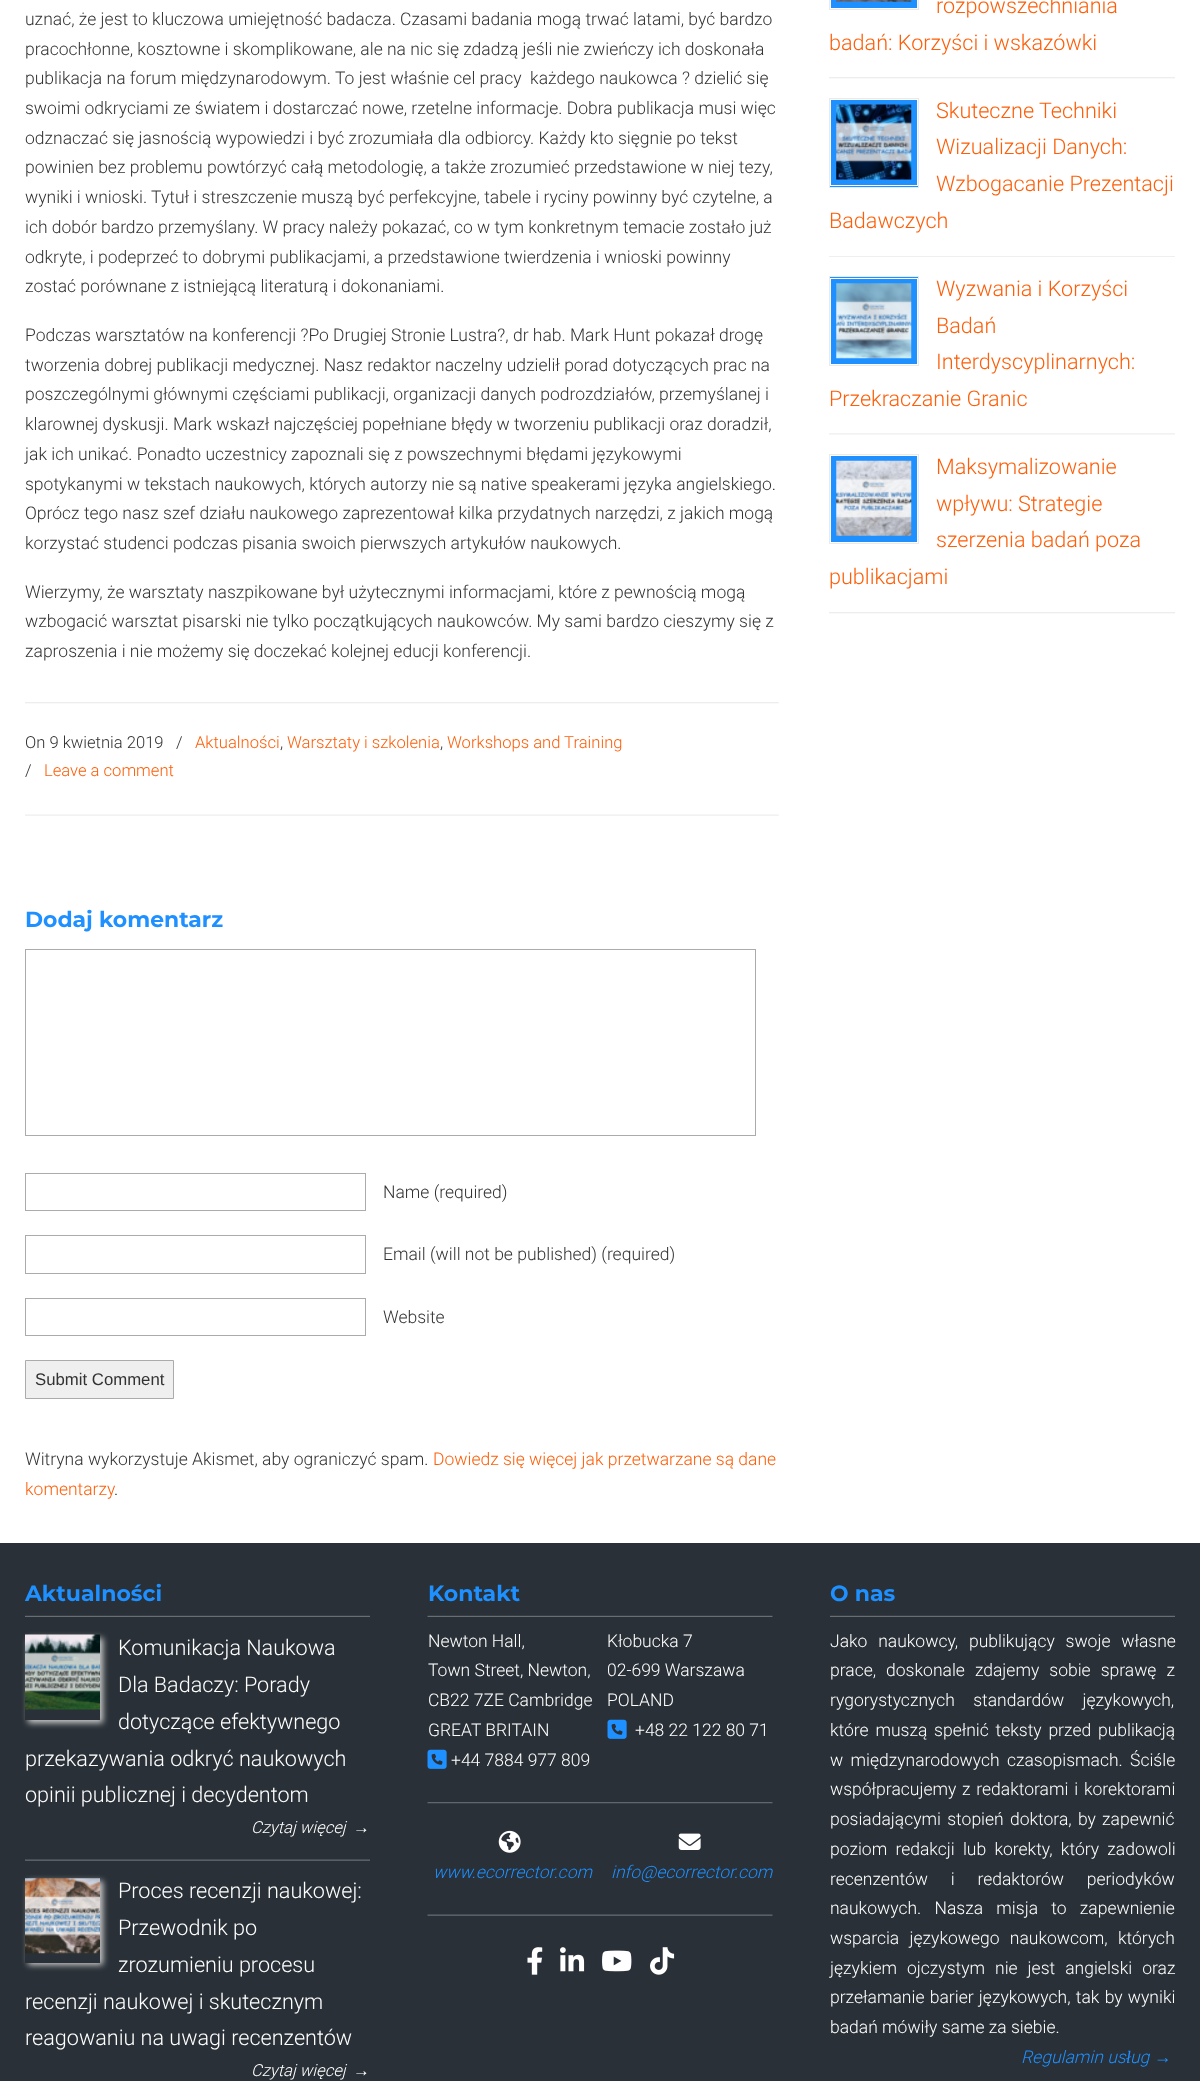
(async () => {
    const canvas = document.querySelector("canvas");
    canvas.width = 1200;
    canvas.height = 2081;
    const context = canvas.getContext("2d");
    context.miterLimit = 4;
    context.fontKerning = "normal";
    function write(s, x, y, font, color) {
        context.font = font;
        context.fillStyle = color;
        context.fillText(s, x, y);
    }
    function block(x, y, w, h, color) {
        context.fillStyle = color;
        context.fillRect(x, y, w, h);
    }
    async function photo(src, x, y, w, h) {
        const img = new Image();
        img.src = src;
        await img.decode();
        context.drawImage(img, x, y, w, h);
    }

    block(0, 0, 1200, 2081, "rgb(255, 255, 255)");
    write("uznać, że jest to kluczowa umiejętność badacza. Czasami badania mogą trwać latami, być bardzo", 25, 25, "300 17.5px Roboto", "rgb(51, 51, 51)");
    write("pracochłonne, kosztowne i skomplikowane, ale na nic się zdadzą jeśli nie zwieńczy ich doskonała", 25, 55, "300 17.5px Roboto", "rgb(51, 51, 51)");
    write("publikacja na forum międzynarodowym. To jest właśnie cel pracy  każdego naukowca ? dzielić się", 25, 84, "300 17.5px Roboto", "rgb(51, 51, 51)");
    write("swoimi odkryciami ze światem i dostarczać nowe, rzetelne informacje. Dobra publikacja musi więc", 25, 114, "300 17.5px Roboto", "rgb(51, 51, 51)");
    write("odznaczać się jasnością wypowiedzi i być zrozumiała dla odbiorcy. Każdy kto sięgnie po tekst", 25, 144, "300 17.5px Roboto", "rgb(51, 51, 51)");
    write("powinien bez problemu powtórzyć całą metodologię, a także zrozumieć przedstawione w niej tezy,", 25, 173, "300 17.5px Roboto", "rgb(51, 51, 51)");
    write("wyniki i wnioski. Tytuł i streszczenie muszą być perfekcyjne, tabele i ryciny powinny być czytelne, a", 25, 203, "300 17.5px Roboto", "rgb(51, 51, 51)");
    write("ich dobór bardzo przemyślany. W pracy należy pokazać, co w tym konkretnym temacie zostało już", 25, 233, "300 17.5px Roboto", "rgb(51, 51, 51)");
    write("odkryte, i podeprzeć to dobrymi publikacjami, a przedstawione twierdzenia i wnioski powinny", 25, 263, "300 17.5px Roboto", "rgb(51, 51, 51)");
    write("zostać porównane z istniejącą literaturą i dokonaniami.", 25, 292, "300 17.5px Roboto", "rgb(51, 51, 51)");
    write("Podczas warsztatów na konferencji ?Po Drugiej Stronie Lustra?, dr hab. Mark Hunt pokazał drogę", 25, 341, "300 17.5px Roboto", "rgb(51, 51, 51)");
    write("tworzenia dobrej publikacji medycznej. Nasz redaktor naczelny udzielił porad dotyczących prac na", 25, 371, "300 17.5px Roboto", "rgb(51, 51, 51)");
    write("poszczególnymi głównymi częściami publikacji, organizacji danych podrozdziałów, przemyślanej i", 25, 400, "300 17.5px Roboto", "rgb(51, 51, 51)");
    write("klarownej dyskusji. Mark wskazł najczęściej popełniane błędy w tworzeniu publikacji oraz doradził,", 25, 430, "300 17.5px Roboto", "rgb(51, 51, 51)");
    write("jak ich unikać. Ponadto uczestnicy zapoznali się z powszechnymi błędami językowymi", 25, 460, "300 17.5px Roboto", "rgb(51, 51, 51)");
    write("spotykanymi w tekstach naukowych, których autorzy nie są native speakerami języka angielskiego.", 25, 490, "300 17.5px Roboto", "rgb(51, 51, 51)");
    write("Oprócz tego nasz szef działu naukowego zaprezentował kilka przydatnych narzędzi, z jakich mogą", 25, 519, "300 17.5px Roboto", "rgb(51, 51, 51)");
    write("korzystać studenci podczas pisania swoich pierwszych artykułów naukowych.", 25, 549, "300 17.5px Roboto", "rgb(51, 51, 51)");
    write("Wierzymy, że warsztaty naszpikowane był użytecznymi informacjami, które z pewnością mogą", 25, 598, "300 17.5px Roboto", "rgb(51, 51, 51)");
    write("wzbogacić warsztat pisarski nie tylko początkujących naukowców. My sami bardzo cieszymy się z", 25, 627, "300 17.5px Roboto", "rgb(51, 51, 51)");
    write("zaproszenia i nie możemy się doczekać kolejnej educji konferencji.", 25, 657, "300 17.5px Roboto", "rgb(51, 51, 51)");
    await photo("media/1.png", 25, 702, 754, 2);
    write("On 9 kwietnia 2019", 25, 748, "300 16.6px Roboto", "rgb(51, 51, 51)");
    write("/", 176, 748, "300 16.6px Roboto", "rgb(51, 51, 51)");
    write("Aktualności", 195, 748, "300 16.6px Roboto", "rgb(254, 94, 8)");
    write(",", 280, 748, "300 16.6px Roboto", "rgb(51, 51, 51)");
    write("Warsztaty i szkolenia", 287, 748, "300 16.6px Roboto", "rgb(254, 94, 8)");
    write(",", 440, 748, "300 16.6px Roboto", "rgb(51, 51, 51)");
    write("Workshops and Training", 447, 748, "300 16.6px Roboto", "rgb(254, 94, 8)");
    write("/", 25, 776, "300 16.6px Roboto", "rgb(51, 51, 51)");
    write("Leave a comment", 44, 776, "300 16.6px Roboto", "rgb(254, 94, 8)");
    await photo("media/2.png", 25, 814, 754, 2);
    write("Dodaj komentarz", 25, 927, "bold 21.9px Montserrat", "rgb(30, 144, 255)");
    context.strokeStyle = "rgb(171, 171, 171)";
    context.strokeRect(25.5, 949.5, 730, 186);
    context.strokeRect(25.5, 1173.5, 340, 37);
    write("Name (required)", 383, 1198, "300 17.5px Roboto", "rgb(51, 51, 51)");
    context.strokeRect(25.5, 1235.5, 340, 38);
    write("Email (will not be published) (required)", 383, 1260, "300 17.5px Roboto", "rgb(51, 51, 51)");
    context.strokeRect(25.5, 1298.5, 340, 37);
    write("Website", 383, 1323, "300 17.5px Roboto", "rgb(51, 51, 51)");
    context.fillStyle = "rgb(239, 239, 239)";
    context.beginPath();
    context.rect(25.5, 1360.5, 148, 38);
    context.fill();
    context.stroke();
    write("Submit Comment", 35, 1385, "16.75px Liberation Sans", "rgb(51, 51, 51)");
    write("Witryna wykorzystuje Akismet, aby ograniczyć spam.", 25, 1465, "300 17.5px Roboto", "rgb(51, 51, 51)");
    write("Dowiedz się więcej jak przetwarzane są dane", 433, 1465, "300 17.5px Roboto", "rgb(254, 94, 8)");
    write("komentarzy", 25, 1495, "300 17.5px Roboto", "rgb(254, 94, 8)");
    write(".", 114, 1495, "300 17.5px Roboto", "rgb(51, 51, 51)");
    await photo("media/3.png", 829, 77, 346, 2);
    block(831, 0, 86, 8, "rgb(30, 144, 255)");
    context.strokeStyle = "rgb(234, 234, 234)";
    context.strokeRect(829.5, -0.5, 89, 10);
    await photo("media/4.png", 836, 0, 76, 2);
    write("rozpowszechniania", 936, 13, "300 21.6px Roboto", "rgb(254, 94, 8)");
    write("badań: Korzyści i wskazówki", 829, 50, "300 21.6px Roboto", "rgb(254, 94, 8)");
    block(829, 256, 346, 1, "rgb(239, 239, 239)");
    block(830, 100, 88, 87, "rgb(30, 144, 255)");
    context.strokeRect(829.5, 98.5, 89, 89);
    context.strokeStyle = "rgb(255, 255, 255)";
    context.strokeRect(830.5, 99.5, 87, 86);
    await photo("media/5.png", 836, 104, 76, 76);
    write("Skuteczne Techniki", 936, 118, "300 21.6px Roboto", "rgb(254, 94, 8)");
    write("Wizualizacji Danych:", 936, 154, "300 21.6px Roboto", "rgb(254, 94, 8)");
    write("Wzbogacanie Prezentacji", 936, 191, "300 21.6px Roboto", "rgb(254, 94, 8)");
    write("Badawczych", 829, 228, "300 21.6px Roboto", "rgb(254, 94, 8)");
    await photo("media/6.png", 829, 433, 346, 2);
    block(830, 277, 88, 87, "rgb(30, 144, 255)");
    context.strokeStyle = "rgb(234, 234, 234)";
    context.strokeRect(829.5, 276.5, 89, 89);
    context.strokeStyle = "rgb(255, 255, 255)";
    context.strokeRect(830.5, 278.5, 87, 86);
    await photo("media/7.png", 836, 283, 76, 76);
    write("Wyzwania i Korzyści", 936, 296, "300 21.6px Roboto", "rgb(254, 94, 8)");
    write("Badań", 936, 333, "300 21.6px Roboto", "rgb(254, 94, 8)");
    write("Interdyscyplinarnych:", 936, 369, "300 21.6px Roboto", "rgb(254, 94, 8)");
    write("Przekraczanie Granic", 829, 406, "300 21.6px Roboto", "rgb(254, 94, 8)");
    await photo("media/3.png", 829, 612, 346, 2);
    block(831, 456, 86, 86, "rgb(30, 144, 255)");
    context.strokeStyle = "rgb(234, 234, 234)";
    context.strokeRect(829.5, 454.5, 89, 89);
    await photo("media/8.png", 836, 460, 76, 76);
    write("Maksymalizowanie", 936, 474, "300 21.6px Roboto", "rgb(254, 94, 8)");
    write("wpływu: Strategie", 936, 511, "300 21.6px Roboto", "rgb(254, 94, 8)");
    write("szerzenia badań poza", 936, 547, "300 21.6px Roboto", "rgb(254, 94, 8)");
    write("publikacjami", 829, 584, "300 21.6px Roboto", "rgb(254, 94, 8)");
    block(0, 1543, 1200, 538, "rgb(41, 48, 55)");
    await photo("media/9.png", 25, 1615, 345, 2);
    write("Aktualności", 25, 1601, "bold 22px Montserrat", "rgb(30, 144, 255)");
    await photo("media/10.png", 25, 1859, 345, 2);
    context.save();
    context.beginPath();
    context.moveTo(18, 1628);
    context.lineTo(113, 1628);
    context.lineTo(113, 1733);
    context.lineTo(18, 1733);
    context.closePath();
    context.moveTo(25, 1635);
    context.lineTo(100, 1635);
    context.lineTo(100, 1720);
    context.lineTo(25, 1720);
    context.closePath();
    context.clip("evenodd");
    context.fillStyle = "rgb(204, 204, 204)";
    context.filter = "blur(3px)";
    context.beginPath();
    context.rect(28, 1638, 75, 85);
    context.fill();
    context.filter = "none";
    context.restore();
    await photo("media/11.png", 25, 1634, 75, 76);
    write("Komunikacja Naukowa", 118, 1655, "300 21.6px Roboto", "rgb(255, 255, 255)");
    write("Dla Badaczy: Porady", 118, 1692, "300 21.6px Roboto", "rgb(255, 255, 255)");
    write("dotyczące efektywnego", 118, 1729, "300 21.6px Roboto", "rgb(255, 255, 255)");
    write("przekazywania odkryć naukowych", 25, 1766, "300 21.6px Roboto", "rgb(255, 255, 255)");
    write("opinii publicznej i decydentom", 25, 1802, "300 21.6px Roboto", "rgb(255, 255, 255)");
    write("Czytaj więcej", 251, 1833, "italic 300 16.6px Roboto", "rgb(255, 255, 255)");
    write("→", 353, 1833, "16.6px Liberation Serif", "rgb(255, 255, 255)");
    context.save();
    context.beginPath();
    context.moveTo(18, 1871);
    context.lineTo(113, 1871);
    context.lineTo(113, 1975);
    context.lineTo(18, 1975);
    context.closePath();
    context.moveTo(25, 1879);
    context.lineTo(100, 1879);
    context.lineTo(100, 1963);
    context.lineTo(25, 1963);
    context.closePath();
    context.clip("evenodd");
    context.fillStyle = "rgb(204, 204, 204)";
    context.filter = "blur(3px)";
    context.beginPath();
    context.rect(28, 1881, 75, 84);
    context.fill();
    context.filter = "none";
    context.restore();
    await photo("media/12.png", 25, 1878, 75, 76);
    write("Proces recenzji naukowej:", 118, 1898, "300 21.6px Roboto", "rgb(255, 255, 255)");
    write("Przewodnik po", 118, 1935, "300 21.6px Roboto", "rgb(255, 255, 255)");
    write("zrozumieniu procesu", 118, 1972, "300 21.6px Roboto", "rgb(255, 255, 255)");
    write("recenzji naukowej i skutecznym", 25, 2009, "300 21.6px Roboto", "rgb(255, 255, 255)");
    write("reagowaniu na uwagi recenzentów", 25, 2045, "300 21.6px Roboto", "rgb(255, 255, 255)");
    write("Czytaj więcej", 251, 2076, "italic 300 16.6px Roboto", "rgb(255, 255, 255)");
    write("→", 353, 2076, "16.6px Liberation Serif", "rgb(255, 255, 255)");
    await photo("media/13.png", 427, 1615, 346, 2);
    write("Kontakt", 428, 1601, "bold 22px Montserrat", "rgb(30, 144, 255)");
    write("Newton Hall,", 428, 1647, "300 17.5px Roboto", "rgb(255, 255, 255)");
    write("Town Street, Newton,", 428, 1676, "300 17.5px Roboto", "rgb(255, 255, 255)");
    write("CB22 7ZE Cambridge", 428, 1706, "300 17.5px Roboto", "rgb(255, 255, 255)");
    write("GREAT BRITAIN", 428, 1736, "300 17.5px Roboto", "rgb(255, 255, 255)");
    await photo("media/14.png", 427, 1749, 20, 20);
    write("+44 7884 977 809", 451, 1766, "300 17.5px Roboto", "rgb(255, 255, 255)");
    write("Kłobucka 7", 607, 1647, "300 17.5px Roboto", "rgb(255, 255, 255)");
    write("02-699 Warszawa", 607, 1676, "300 17.5px Roboto", "rgb(255, 255, 255)");
    write("POLAND", 607, 1706, "300 17.5px Roboto", "rgb(255, 255, 255)");
    await photo("media/14.png", 607, 1719, 20, 20);
    write("+48 22 122 80 71", 635, 1736, "300 17.5px Roboto", "rgb(255, 255, 255)");
    await photo("media/15.png", 427, 1802, 346, 2);
    await photo("media/16.png", 498, 1830, 23, 23);
    write("www.ecorrector.com", 433, 1878, "italic 300 17.5px Roboto", "rgb(30, 144, 255)");
    await photo("media/17.png", 678, 1833, 23, 17);
    write("info@ecorrector.com", 611, 1878, "italic 300 17.5px Roboto", "rgb(30, 144, 255)");
    await photo("media/18.png", 427, 1914, 346, 2);
    await photo("media/19.png", 527, 1947, 16, 28);
    await photo("media/20.png", 560, 1947, 25, 25);
    await photo("media/21.png", 602, 1950, 30, 22);
    await photo("media/22.png", 650, 1947, 25, 28);
    await photo("media/9.png", 830, 1615, 345, 2);
    write("O nas", 830, 1601, "bold 22px Montserrat", "rgb(30, 144, 255)");
    context.wordSpacing = "6.5px";
    write("Jako naukowcy, publikujący swoje własne", 830, 1647, "300 17.5px Roboto", "rgb(255, 255, 255)");
    context.wordSpacing = "5.75px";
    write("prace, doskonale zdajemy sobie sprawę z", 830, 1676, "300 17.5px Roboto", "rgb(255, 255, 255)");
    context.wordSpacing = "14px";
    write("rygorystycznych standardów językowych,", 830, 1706, "300 17.5px Roboto", "rgb(255, 255, 255)");
    context.wordSpacing = "2.5px";
    write("które muszą spełnić teksty przed publikacją", 830, 1736, "300 17.5px Roboto", "rgb(255, 255, 255)");
    context.wordSpacing = "3px";
    write("w międzynarodowych czasopismach. Ściśle", 830, 1766, "300 17.5px Roboto", "rgb(255, 255, 255)");
    context.wordSpacing = "1.5px";
    write("współpracujemy z redaktorami i korektorami", 830, 1795, "300 17.5px Roboto", "rgb(255, 255, 255)");
    context.wordSpacing = "2px";
    write("posiadającymi stopień doktora, by zapewnić", 830, 1825, "300 17.5px Roboto", "rgb(255, 255, 255)");
    context.wordSpacing = "4px";
    write("poziom redakcji lub korekty, który zadowoli", 830, 1855, "300 17.5px Roboto", "rgb(255, 255, 255)");
    context.wordSpacing = "18.5px";
    write("recenzentów i redaktorów periodyków", 830, 1885, "300 17.5px Roboto", "rgb(255, 255, 255)");
    context.wordSpacing = "9px";
    write("naukowych. Nasza misja to zapewnienie", 830, 1914, "300 17.5px Roboto", "rgb(255, 255, 255)");
    context.wordSpacing = "6px";
    write("wsparcia językowego naukowcom, których", 830, 1944, "300 17.5px Roboto", "rgb(255, 255, 255)");
    context.wordSpacing = "5.75px";
    write("językiem ojczystym nie jest angielski oraz", 830, 1974, "300 17.5px Roboto", "rgb(255, 255, 255)");
    context.wordSpacing = "1px";
    write("przełamanie barier językowych, tak by wyniki", 830, 2003, "300 17.5px Roboto", "rgb(255, 255, 255)");
    context.wordSpacing = "0px";
    write("badań mówiły same za siebie.", 830, 2033, "300 17.5px Roboto", "rgb(255, 255, 255)");
    write("Regulamin us", 1021, 2063, "italic 300 17.5px Roboto", "rgb(30, 144, 255)");
    write("ł", 1126, 2063, "italic 17.5px Liberation Serif", "rgb(30, 144, 255)");
    write("ug", 1130, 2063, "italic 300 17.5px Roboto", "rgb(30, 144, 255)");
    write("→", 1154, 2063, "italic 17.5px Liberation Serif", "rgb(30, 144, 255)");
})();
